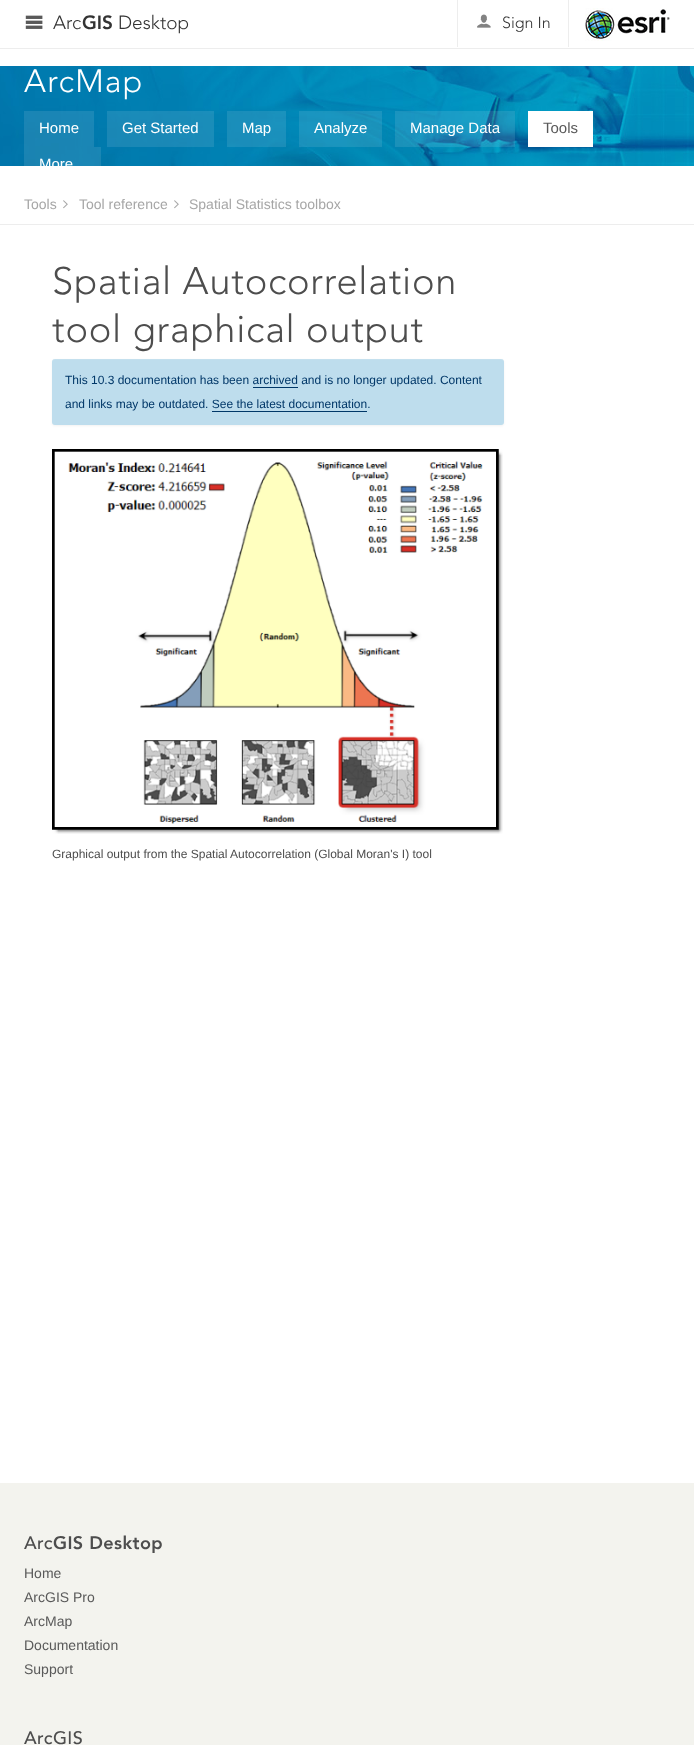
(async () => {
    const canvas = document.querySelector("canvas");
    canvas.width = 694;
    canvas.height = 1745;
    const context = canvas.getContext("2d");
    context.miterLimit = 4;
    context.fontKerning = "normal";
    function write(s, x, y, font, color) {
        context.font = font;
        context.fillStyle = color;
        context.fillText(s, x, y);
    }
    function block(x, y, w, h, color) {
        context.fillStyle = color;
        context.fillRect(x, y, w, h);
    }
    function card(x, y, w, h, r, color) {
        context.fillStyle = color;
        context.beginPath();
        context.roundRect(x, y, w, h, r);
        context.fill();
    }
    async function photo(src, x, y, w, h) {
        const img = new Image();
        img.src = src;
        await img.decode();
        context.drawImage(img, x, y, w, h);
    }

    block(0, 0, 694, 1745, "rgb(255, 255, 255)");
    block(0, 48, 694, 1, "rgb(237, 237, 237)");
    await photo("media/1.png", 25, 15, 18, 14);
    write("Arc", 53, 29, "300 19px 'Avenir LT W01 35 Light'", "rgb(51, 51, 51)");
    write("GIS", 82, 29, "900 19px 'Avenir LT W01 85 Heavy'", "rgb(51, 51, 51)");
    write("Desktop", 118, 29, "300 19px 'Avenir LT W01 35 Light'", "rgb(51, 51, 51)");
    block(568, 0, 1, 47, "rgb(237, 237, 237)");
    block(457, 0, 1, 47, "rgb(237, 237, 237)");
    await photo("media/2.png", 477, 14, 14, 14);
    write("Sign In", 502, 28, "300 16px 'Avenir LT W01 35 Light'", "rgb(51, 51, 51)");
    await photo("media/3.png", 585, 8, 85, 33);
    await photo("media/4.png", 0, 66, 694, 100);
    context.letterSpacing = "1.25px";
    write("ArcMap", 24, 92, "300 32px 'Avenir LT W01 35 Light'", "rgb(255, 255, 255)");
    block(24, 111, 70, 36, "rgba(255, 255, 255, 0.1)");
    context.letterSpacing = "0px";
    write("Home", 39, 133, "15px Liberation Sans", "rgb(255, 255, 255)");
    block(107, 111, 107, 36, "rgba(255, 255, 255, 0.1)");
    write("Get Started", 122, 133, "15px Liberation Sans", "rgb(255, 255, 255)");
    block(227, 111, 59, 36, "rgba(255, 255, 255, 0.1)");
    write("Map", 242, 133, "15px Liberation Sans", "rgb(255, 255, 255)");
    block(299, 111, 83, 36, "rgba(255, 255, 255, 0.1)");
    write("Analyze", 314, 133, "15px Liberation Sans", "rgb(255, 255, 255)");
    block(395, 111, 120, 36, "rgba(255, 255, 255, 0.1)");
    write("Manage Data", 410, 133, "15px Liberation Sans", "rgb(255, 255, 255)");
    block(528, 111, 65, 36, "rgb(255, 255, 255)");
    write("Tools", 543, 133, "15px Liberation Sans", "rgb(89, 89, 89)");
    block(24, 147, 77, 19, "rgba(255, 255, 255, 0.1)");
    write("More", 39, 169, "15px Liberation Sans", "rgb(255, 255, 255)");
    block(0, 224, 694, 1, "rgb(237, 237, 237)");
    write("Tools", 24, 209, "14px Liberation Sans", "rgb(166, 166, 166)");
    await photo("media/5.png", 63, 200, 5, 9);
    write("Tool reference", 79, 209, "14px Liberation Sans", "rgb(166, 166, 166)");
    await photo("media/5.png", 174, 200, 5, 9);
    write("Spatial Statistics toolbox", 189, 209, "14px Liberation Sans", "rgb(166, 166, 166)");
    context.letterSpacing = "0.75px";
    write("Spatial Autocorrelation", 52, 294, "300 38px 'Avenir LT W01 35 Light'", "rgb(77, 77, 77)");
    write("tool graphical output", 52, 342, "300 38px 'Avenir LT W01 35 Light'", "rgb(77, 77, 77)");
    context.fillStyle = "rgba(0, 0, 0, 0.05)";
    context.filter = "blur(1px)";
    context.beginPath();
    context.roundRect(52, 360, 452, 66, 3);
    context.fill();
    context.filter = "none";
    card(52, 359, 452, 66, 3, "rgb(190, 221, 237)");
    context.fillStyle = "rgba(255, 255, 255, 0.1)";
    context.beginPath();
    context.moveTo(55, 360);
    context.lineTo(501, 360);
    context.bezierCurveTo(503, 360, 504, 361, 504, 363);
    context.bezierCurveTo(504, 361, 504, 360, 502, 359);
    context.lineTo(54, 359);
    context.lineTo(52, 361);
    context.lineTo(52, 363);
    context.bezierCurveTo(52, 361, 53, 360, 55, 360);
    context.closePath();
    context.fill();
    context.letterSpacing = "0px";
    write("This 10.3 documentation has been archived and is no longer updated. Content", 65, 384, "12px Liberation Sans", "rgb(0, 55, 104)");
    block(253, 387, 45, 1, "rgb(0, 55, 104)");
    write("and links may be outdated. See the latest documentation.", 65, 408, "12px Liberation Sans", "rgb(0, 55, 104)");
    block(212, 411, 155, 1, "rgb(0, 55, 104)");
    await photo("media/6.png", 52, 449, 451, 385);
    write("Graphical output from the Spatial Autocorrelation (Global Moran's I) tool", 52, 858, "12px Liberation Sans", "rgb(77, 77, 77)");
    block(0, 1483, 694, 262, "rgb(243, 243, 238)");
    context.letterSpacing = "0.4px";
    write("Arc", 24, 1549, "500 18px 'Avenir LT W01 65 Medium'", "rgb(77, 77, 77)");
    write("GIS Desktop", 53, 1549, "900 18px 'Avenir LT W01 85 Heavy'", "rgb(77, 77, 77)");
    context.letterSpacing = "0px";
    write("Home", 24, 1578, "14px Liberation Sans", "rgb(89, 89, 89)");
    write("ArcGIS Pro", 24, 1602, "14px Liberation Sans", "rgb(89, 89, 89)");
    write("ArcMap", 24, 1626, "14px Liberation Sans", "rgb(89, 89, 89)");
    write("Documentation", 24, 1650, "14px Liberation Sans", "rgb(89, 89, 89)");
    write("Support", 24, 1674, "14px Liberation Sans", "rgb(89, 89, 89)");
    context.letterSpacing = "0.4px";
    write("ArcGIS", 24, 1744, "500 18px 'Avenir LT W01 65 Medium'", "rgb(77, 77, 77)");
})();
